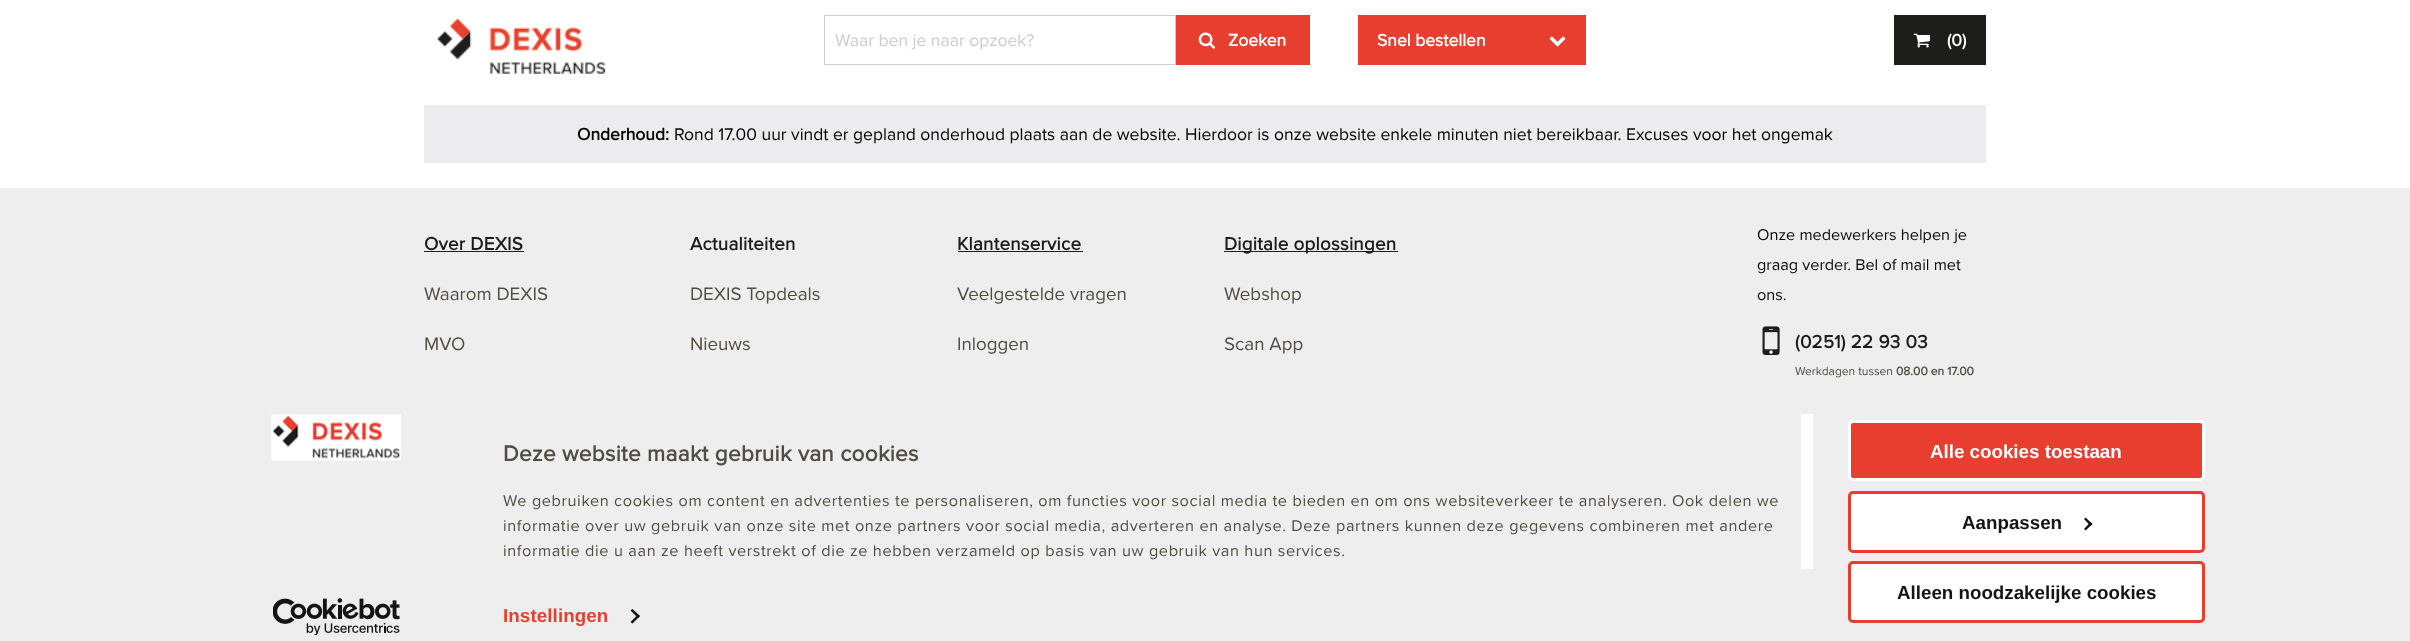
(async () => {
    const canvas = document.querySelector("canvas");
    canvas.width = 2410;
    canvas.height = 641;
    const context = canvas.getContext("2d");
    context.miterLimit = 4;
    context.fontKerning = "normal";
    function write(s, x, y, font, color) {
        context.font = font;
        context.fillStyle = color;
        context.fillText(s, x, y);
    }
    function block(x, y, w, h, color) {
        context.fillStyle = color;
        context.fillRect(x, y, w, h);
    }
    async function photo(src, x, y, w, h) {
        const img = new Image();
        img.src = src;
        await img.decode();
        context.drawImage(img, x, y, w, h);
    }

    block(0, 0, 2410, 641, "rgb(238, 238, 238)");
    block(0, 0, 2410, 188, "rgb(255, 255, 255)");
    await photo("media/1.png", 437, 18, 169, 56);
    context.strokeStyle = "rgb(204, 204, 204)";
    context.strokeRect(824.5, 15.5, 351, 49);
    write("Waar ben je naar opzoek?", 835, 46, "17.5px Proxima Nova", "rgb(204, 204, 204)");
    block(1176, 15, 134, 50, "rgb(232, 62, 48)");
    await photo("media/2.png", 1198, 32, 17, 17);
    write("Zoeken", 1228, 46, "bold 17.5px Proxima Nova", "rgb(255, 255, 255)");
    block(1358, 15, 228, 50, "rgb(232, 62, 48)");
    write("Snel bestellen", 1377, 46, "bold 17.5px Proxima Nova", "rgb(255, 255, 255)");
    await photo("media/3.png", 1549, 36, 17, 11);
    block(1894, 15, 92, 50, "rgb(29, 29, 27)");
    await photo("media/4.png", 1913, 33, 17, 15);
    write("(0)", 1947, 46, "bold 17.5px Proxima Nova", "rgb(255, 255, 255)");
    block(424, 105, 1562, 58, "rgb(236, 236, 238)");
    write("Onderhoud:", 577, 140, "bold 17.5px Proxima Nova", "rgb(0, 0, 0)");
    write("Rond 17.00 uur vindt er gepland onderhoud plaats aan de website. Hierdoor is onze website enkele minuten niet bereikbaar. Excuses voor het ongemak", 674, 140, "17.5px Proxima Nova", "rgb(0, 0, 0)");
    context.letterSpacing = "0.25px";
    write("Over DEXIS", 424, 250, "bold 18.75px Proxima Nova", "rgb(29, 29, 27)");
    block(424, 251, 100, 1, "rgb(29, 29, 27)");
    context.letterSpacing = "0px";
    write("Waarom DEXIS", 424, 300, "18.75px Proxima Nova", "rgb(82, 77, 67)");
    write("MVO", 424, 350, "18.75px Proxima Nova", "rgb(82, 77, 67)");
    context.letterSpacing = "0.25px";
    write("Actualiteiten", 690, 250, "bold 18.75px Proxima Nova", "rgb(29, 29, 27)");
    context.letterSpacing = "0px";
    write("DEXIS Topdeals", 690, 300, "18.75px Proxima Nova", "rgb(82, 77, 67)");
    write("Nieuws", 690, 350, "18.75px Proxima Nova", "rgb(82, 77, 67)");
    context.letterSpacing = "0.25px";
    write("Klantenservice", 957, 250, "bold 18.75px Proxima Nova", "rgb(29, 29, 27)");
    block(958, 251, 125, 1, "rgb(29, 29, 27)");
    context.letterSpacing = "0px";
    write("Veelgestelde vragen", 957, 300, "18.75px Proxima Nova", "rgb(82, 77, 67)");
    write("Inloggen", 957, 350, "18.75px Proxima Nova", "rgb(82, 77, 67)");
    block(1224, 251, 174, 1, "rgb(29, 29, 27)");
    context.letterSpacing = "0.25px";
    write("Digitale oplossingen", 1224, 250, "bold 18.75px Proxima Nova", "rgb(29, 29, 27)");
    context.letterSpacing = "0px";
    write("Webshop", 1224, 300, "18.75px Proxima Nova", "rgb(82, 77, 67)");
    write("Scan App", 1224, 350, "18.75px Proxima Nova", "rgb(82, 77, 67)");
    write("Onze medewerkers helpen je", 1757, 240, "16.25px Proxima Nova", "rgb(10, 10, 10)");
    write("graag verder. Bel of mail met", 1757, 270, "16.25px Proxima Nova", "rgb(10, 10, 10)");
    write("ons.", 1757, 300, "16.25px Proxima Nova", "rgb(10, 10, 10)");
    await photo("media/5.png", 1762, 326, 18, 29);
    context.letterSpacing = "0.25px";
    write("(0251) 22 93 03", 1795, 348, "bold 18.75px Proxima Nova", "rgb(29, 29, 27)");
    context.letterSpacing = "0px";
    write("Werkdagen tussen", 1795, 375, "12px Proxima Nova", "rgb(82, 77, 67)");
    write("08.00 en 17.00", 1896, 375, "bold 12px Proxima Nova", "rgb(82, 77, 67)");
    await photo("media/6.png", 271, 414, 130, 47);
    await photo("media/7.png", 273, 598, 127, 37);
    context.letterSpacing = "0.3px";
    write("Deze website maakt gebruik van cookies", 503, 461, "bold 22.5px Proxima Nova", "rgb(82, 77, 67)");
    context.letterSpacing = "0.62px";
    write("We gebruiken cookies om content en advertenties te personaliseren, om functies voor social media te bieden en om ons websiteverkeer te analyseren. Ook delen we", 503, 506, "16.25px Proxima Nova", "rgb(82, 77, 67)");
    write("informatie over uw gebruik van onze site met onze partners voor social media, adverteren en analyse. Deze partners kunnen deze gegevens combineren met andere", 503, 531, "16.25px Proxima Nova", "rgb(82, 77, 67)");
    write("informatie die u aan ze heeft verstrekt of die ze hebben verzameld op basis van uw gebruik van hun services.", 503, 556, "16.25px Proxima Nova", "rgb(82, 77, 67)");
    block(1801, 414, 12, 155, "rgb(255, 255, 255)");
    context.letterSpacing = "0.1px";
    write("Instellingen", 503, 622, "bold 18.75px Liberation Sans", "rgb(232, 62, 48)");
    context.fillStyle = "rgb(20, 20, 20)";
    context.beginPath();
    context.moveTo(632.5, 609);
    context.lineTo(640, 616);
    context.lineTo(638, 618);
    context.lineTo(630.5, 610.5);
    context.closePath();
    context.fill();
    context.beginPath();
    context.moveTo(638, 614.5);
    context.lineTo(640, 616);
    context.lineTo(632.5, 623.5);
    context.lineTo(630.5, 622);
    context.closePath();
    context.fill();
    context.fillStyle = "rgb(232, 62, 48)";
    context.beginPath();
    context.roundRect(1849.5, 421.5, 354, 58, 3.5);
    context.fill();
    context.strokeStyle = "rgb(255, 255, 255)";
    context.lineWidth = 3;
    context.stroke();
    context.letterSpacing = "0px";
    write("Alle cookies toestaan", 1930, 458, "bold 18.75px Liberation Sans", "rgb(255, 255, 255)");
    context.beginPath();
    context.roundRect(1849.5, 492.5, 354, 59, 3.5);
    context.fill();
    context.strokeStyle = "rgb(232, 62, 48)";
    context.stroke();
    write("Aanpassen", 1962, 529, "bold 18.75px Liberation Sans", "rgb(20, 20, 20)");
    context.beginPath();
    context.moveTo(2085.5, 517.5);
    context.lineTo(2092.5, 524);
    context.lineTo(2090.5, 526);
    context.lineTo(2084, 519);
    context.closePath();
    context.fill();
    context.beginPath();
    context.moveTo(2090.5, 522);
    context.lineTo(2092.5, 524);
    context.lineTo(2085.5, 530.5);
    context.lineTo(2084, 529);
    context.closePath();
    context.fill();
    context.fillStyle = "rgb(255, 255, 255)";
    context.beginPath();
    context.roundRect(1849.5, 562.5, 354, 59, 3.5);
    context.fill();
    context.stroke();
    write("Alleen noodzakelijke cookies", 1897, 599, "bold 18.75px Liberation Sans", "rgb(20, 20, 20)");
})();
